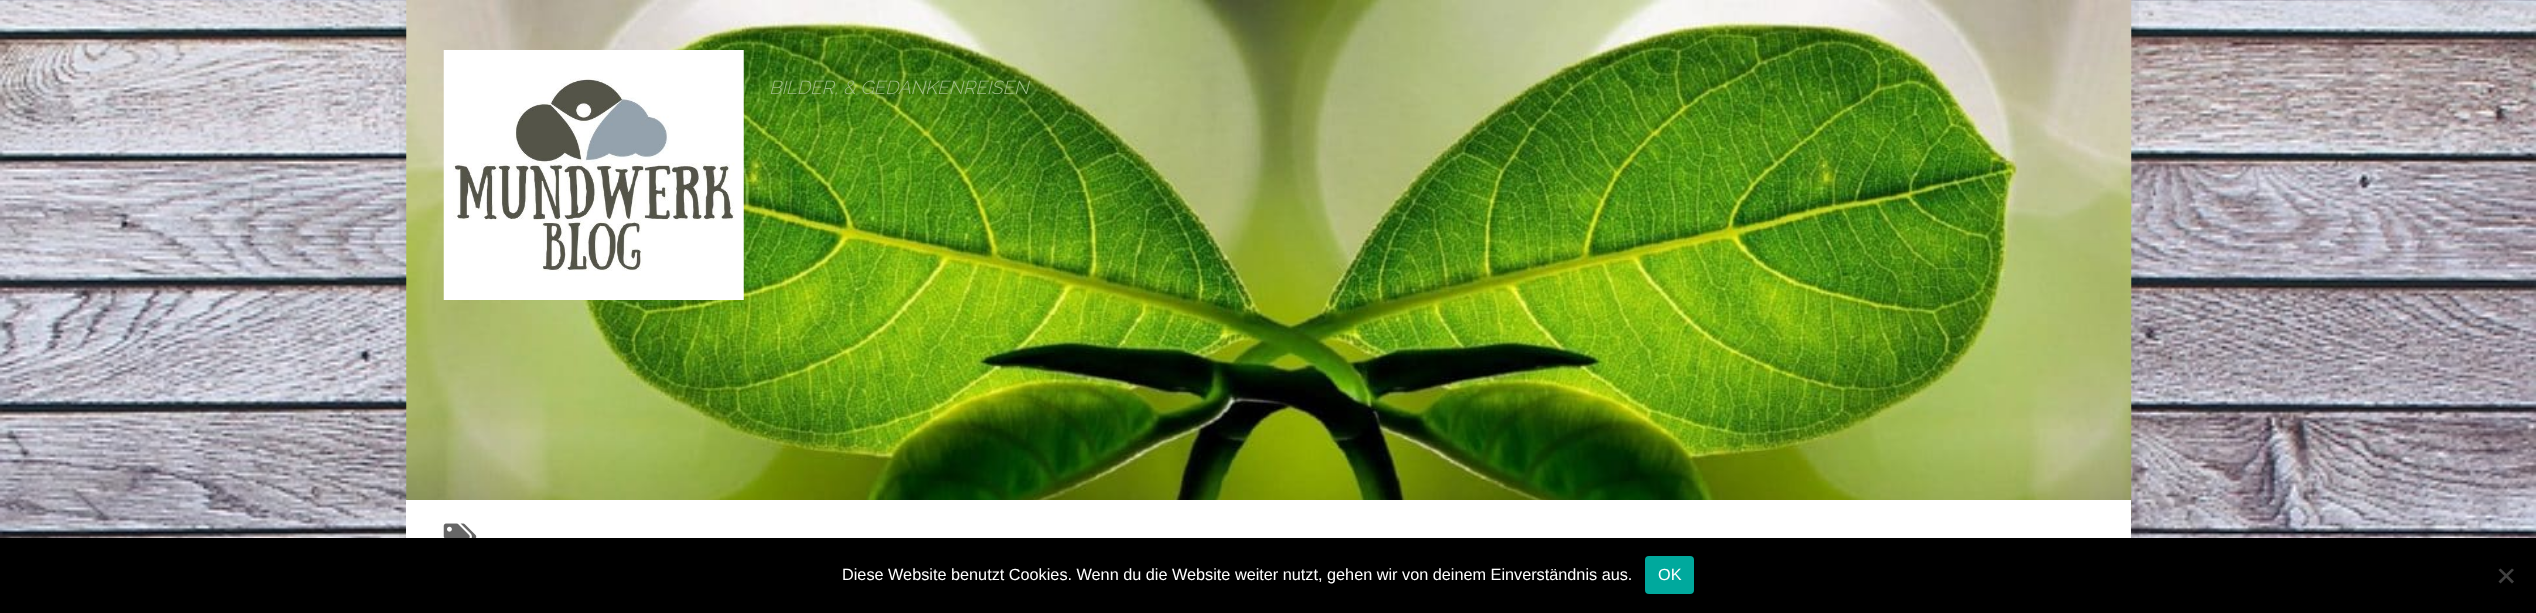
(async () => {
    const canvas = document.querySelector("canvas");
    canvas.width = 2536;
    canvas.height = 613;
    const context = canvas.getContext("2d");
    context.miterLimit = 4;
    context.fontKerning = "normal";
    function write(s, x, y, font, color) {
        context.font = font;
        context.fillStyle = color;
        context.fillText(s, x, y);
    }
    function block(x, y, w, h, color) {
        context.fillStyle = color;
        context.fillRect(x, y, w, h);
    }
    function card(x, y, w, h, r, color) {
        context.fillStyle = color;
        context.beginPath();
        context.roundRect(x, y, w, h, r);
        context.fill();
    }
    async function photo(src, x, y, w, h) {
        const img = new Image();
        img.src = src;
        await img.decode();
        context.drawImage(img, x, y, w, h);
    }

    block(0, 0, 2536, 613, "rgb(255, 255, 255)");
    await photo("media/1.png", 0, 0, 2536, 538);
    context.fillStyle = "rgba(0, 0, 0, 0.04)";
    context.beginPath();
    context.moveTo(399, 0);
    context.lineTo(399, 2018);
    context.lineTo(2124, 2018);
    context.lineTo(406, 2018);
    context.lineTo(406, 0);
    context.closePath();
    context.fill();
    context.beginPath();
    context.moveTo(414, 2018);
    context.lineTo(2139, 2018);
    context.lineTo(2139, 0);
    context.lineTo(2131, 0);
    context.lineTo(2131, 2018);
    context.closePath();
    context.fill();
    await photo("media/2.png", 406, 0, 1726, 517);
    await photo("media/3.png", 443, 50, 301, 250);
    write("BILDER, & GEDANKENREISEN", 769, 94, "italic 300 18.75px Raleway", "rgb(160, 189, 137)");
    block(406, 500, 1725, 38, "rgb(255, 255, 255)");
    await photo("media/4.png", 443, 523, 34, 15);
    block(0, 538, 2536, 75, "rgb(0, 0, 0)");
    write("Diese Website benutzt Cookies. Wenn du die Website weiter nutzt, gehen wir von deinem Einverständnis aus.", 842, 580, "16.25px Liberation Sans", "rgb(255, 255, 255)");
    card(1645, 556, 49, 38, 4, "rgb(0, 169, 157)");
    write("OK", 1658, 580, "16.25px Liberation Sans", "rgb(255, 255, 255)");
    context.fillStyle = "rgb(64, 64, 64)";
    context.beginPath();
    context.moveTo(2512, 568.5);
    context.lineTo(2514, 570);
    context.lineTo(2500.5, 583.5);
    context.lineTo(2498.5, 581.5);
    context.closePath();
    context.fill();
    context.beginPath();
    context.moveTo(2498.5, 570);
    context.lineTo(2500.5, 568.5);
    context.lineTo(2514, 581.5);
    context.lineTo(2512, 583.5);
    context.closePath();
    context.fill();
})();
